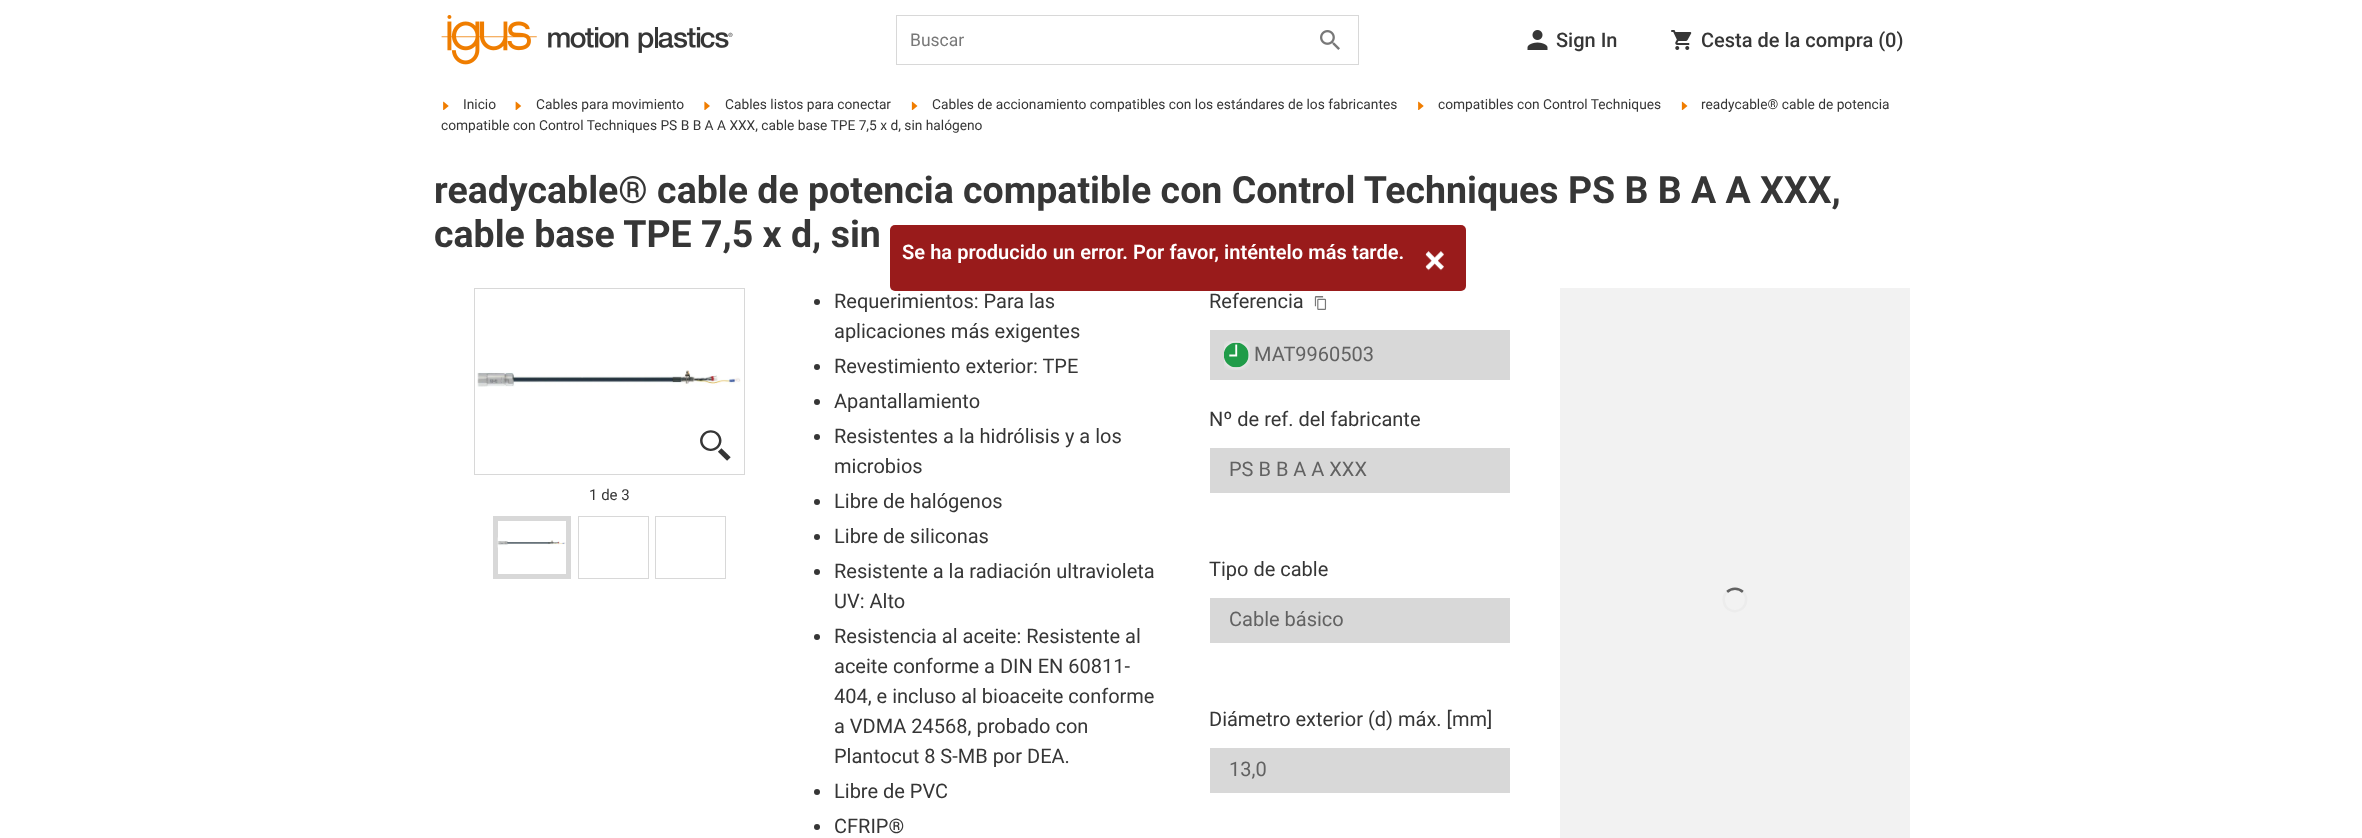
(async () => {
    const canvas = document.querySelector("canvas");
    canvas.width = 2362;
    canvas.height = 838;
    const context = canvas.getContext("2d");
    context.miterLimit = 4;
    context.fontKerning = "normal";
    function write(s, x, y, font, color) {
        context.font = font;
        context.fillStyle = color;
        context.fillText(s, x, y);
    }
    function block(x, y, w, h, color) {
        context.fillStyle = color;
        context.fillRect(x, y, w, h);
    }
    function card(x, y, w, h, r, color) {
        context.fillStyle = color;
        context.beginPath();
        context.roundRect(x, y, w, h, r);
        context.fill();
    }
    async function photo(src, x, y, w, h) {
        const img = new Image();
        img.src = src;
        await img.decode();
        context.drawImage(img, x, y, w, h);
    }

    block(0, 0, 2362, 838, "rgb(255, 255, 255)");
    await photo("media/1.png", 441, 15, 96, 50);
    await photo("media/2.png", 548, 27, 185, 26);
    context.strokeStyle = "rgb(216, 216, 216)";
    context.strokeRect(896.5, 15.5, 462, 49);
    write("Buscar", 910, 46, "17.5px Roboto", "rgb(120, 120, 120)");
    await photo("media/3.png", 1320, 30, 20, 20);
    await photo("media/4.png", 1527, 30, 21, 20);
    write("Sign In", 1556, 47, "500 20px Roboto", "rgb(54, 54, 54)");
    await photo("media/5.png", 1671, 30, 21, 20);
    write("Cesta de la compra (0)", 1701, 47, "500 20px Roboto", "rgb(54, 54, 54)");
    await photo("media/6.png", 1681, 101, 7, 9);
    write("readycable® cable de potencia", 1701, 109, "13.75px Roboto", "rgb(54, 54, 54)");
    write("compatible con Control Techniques PS B B A A XXX, cable base TPE 7,5 x d, sin halógeno", 441, 130, "13.75px Roboto", "rgb(54, 54, 54)");
    await photo("media/7.png", 443, 101, 6, 9);
    write("Inicio", 463, 109, "13.75px Roboto", "rgb(54, 54, 54)");
    await photo("media/8.png", 515, 101, 7, 9);
    write("Cables para movimiento", 536, 109, "13.75px Roboto", "rgb(54, 54, 54)");
    await photo("media/9.png", 704, 101, 6, 9);
    write("Cables listos para conectar", 725, 109, "13.75px Roboto", "rgb(54, 54, 54)");
    await photo("media/6.png", 911, 101, 7, 9);
    write("Cables de accionamiento compatibles con los estándares de los fabricantes", 932, 109, "13.75px Roboto", "rgb(54, 54, 54)");
    await photo("media/7.png", 1418, 101, 6, 9);
    write("compatibles con Control Techniques", 1438, 109, "13.75px Roboto", "rgb(54, 54, 54)");
    write("readycable® cable de potencia compatible con Control Techniques PS B B A A XXX,", 434, 203, "bold 37.5px Roboto", "rgb(54, 54, 54)");
    write("cable base TPE 7,5 x d, sin", 434, 247, "bold 37.5px Roboto", "rgb(54, 54, 54)");
    context.strokeRect(474.5, 288.5, 270, 186);
    await photo("media/10.png", 477, 370, 264, 17);
    await photo("media/11.png", 700, 430, 31, 31);
    write("1 de 3", 589, 500, "15px Roboto", "rgb(54, 54, 54)");
    context.lineWidth = 5;
    context.strokeRect(495.5, 518.5, 73, 58);
    await photo("media/12.png", 497, 537, 69, 11);
    context.lineWidth = 1;
    context.strokeRect(578.5, 516.5, 70, 62);
    context.strokeRect(655.5, 516.5, 70, 62);
    context.beginPath();
    context.arc(817, 302, 3, 0, Math.PI * 2);
    context.fill();
    write("Requerimientos: Para las", 834, 308, "20px Roboto", "rgb(54, 54, 54)");
    write("aplicaciones más exigentes", 834, 338, "20px Roboto", "rgb(54, 54, 54)");
    context.beginPath();
    context.arc(817, 367, 3, 0, Math.PI * 2);
    context.fill();
    write("Revestimiento exterior: TPE", 834, 373, "20px Roboto", "rgb(54, 54, 54)");
    context.beginPath();
    context.arc(817, 402, 3, 0, Math.PI * 2);
    context.fill();
    write("Apantallamiento", 834, 408, "20px Roboto", "rgb(54, 54, 54)");
    context.beginPath();
    context.arc(817, 437, 3, 0, Math.PI * 2);
    context.fill();
    write("Resistentes a la hidrólisis y a los", 834, 443, "20px Roboto", "rgb(54, 54, 54)");
    write("microbios", 834, 473, "20px Roboto", "rgb(54, 54, 54)");
    context.beginPath();
    context.arc(817, 502, 3, 0, Math.PI * 2);
    context.fill();
    write("Libre de halógenos", 834, 508, "20px Roboto", "rgb(54, 54, 54)");
    context.beginPath();
    context.arc(817, 537, 3, 0, Math.PI * 2);
    context.fill();
    write("Libre de siliconas", 834, 543, "20px Roboto", "rgb(54, 54, 54)");
    context.beginPath();
    context.arc(817, 572, 3, 0, Math.PI * 2);
    context.fill();
    write("Resistente a la radiación ultravioleta", 834, 578, "20px Roboto", "rgb(54, 54, 54)");
    write("UV: Alto", 834, 608, "20px Roboto", "rgb(54, 54, 54)");
    context.beginPath();
    context.arc(817, 637, 3, 0, Math.PI * 2);
    context.fill();
    write("Resistencia al aceite: Resistente al", 834, 643, "20px Roboto", "rgb(54, 54, 54)");
    write("aceite conforme a DIN EN 60811-", 834, 673, "20px Roboto", "rgb(54, 54, 54)");
    write("404, e incluso al bioaceite conforme", 834, 703, "20px Roboto", "rgb(54, 54, 54)");
    write("a VDMA 24568, probado con", 834, 733, "20px Roboto", "rgb(54, 54, 54)");
    write("Plantocut 8 S-MB por DEA.", 834, 763, "20px Roboto", "rgb(54, 54, 54)");
    context.beginPath();
    context.arc(817, 792, 3, 0, Math.PI * 2);
    context.fill();
    write("Libre de PVC", 834, 798, "20px Roboto", "rgb(54, 54, 54)");
    context.beginPath();
    context.arc(817, 827, 3, 0, Math.PI * 2);
    context.fill();
    write("CFRIP®", 834, 833, "20px Roboto", "rgb(54, 54, 54)");
    write("Referencia", 1209, 308, "20px Roboto", "rgb(54, 54, 54)");
    await photo("media/13.png", 1314, 296, 13, 14);
    block(1210, 330, 300, 50, "rgb(216, 216, 216)");
    await photo("media/14.png", 1224, 341, 26, 29);
    write("MAT9960503", 1254, 361, "20px Roboto", "rgb(98, 98, 98)");
    write("Nº de ref. del fabricante", 1209, 426, "20px Roboto", "rgb(54, 54, 54)");
    block(1210, 448, 300, 45, "rgb(216, 216, 216)");
    write("PS B B A A XXX", 1229, 476, "20px Roboto", "rgb(98, 98, 98)");
    write("Tipo de cable", 1209, 576, "20px Roboto", "rgb(54, 54, 54)");
    block(1210, 598, 300, 45, "rgb(216, 216, 216)");
    write("Cable básico", 1229, 626, "20px Roboto", "rgb(98, 98, 98)");
    write("Diámetro exterior (d) máx. [mm]", 1209, 726, "20px Roboto", "rgb(54, 54, 54)");
    block(1210, 748, 300, 45, "rgb(216, 216, 216)");
    write("13,0", 1229, 776, "20px Roboto", "rgb(98, 98, 98)");
    block(1560, 288, 350, 550, "rgb(242, 242, 242)");
    context.beginPath();
    context.moveTo(1727, 592);
    context.bezierCurveTo(1731.5, 587.5, 1738.5, 587.5, 1743, 592);
    context.strokeStyle = "rgb(98, 98, 98)";
    context.lineWidth = 2.5;
    context.stroke();
    context.beginPath();
    context.moveTo(1743, 592);
    context.bezierCurveTo(1745, 594, 1746.5, 597, 1746, 600);
    context.bezierCurveTo(1746, 613.5, 1726.5, 615.5, 1724, 602);
    context.bezierCurveTo(1723, 598.5, 1724.5, 594.5, 1727, 592);
    context.strokeStyle = "rgb(236, 236, 236)";
    context.stroke();
    card(890, 225, 576, 66, 5, "rgb(153, 27, 27)");
    context.wordSpacing = "0.25px";
    write("Se ha producido un error. Por favor, inténtelo más tarde.", 902, 259, "600 20px Roboto", "rgb(255, 255, 255)");
    await photo("media/15.png", 1425, 251, 19, 20);
})();
